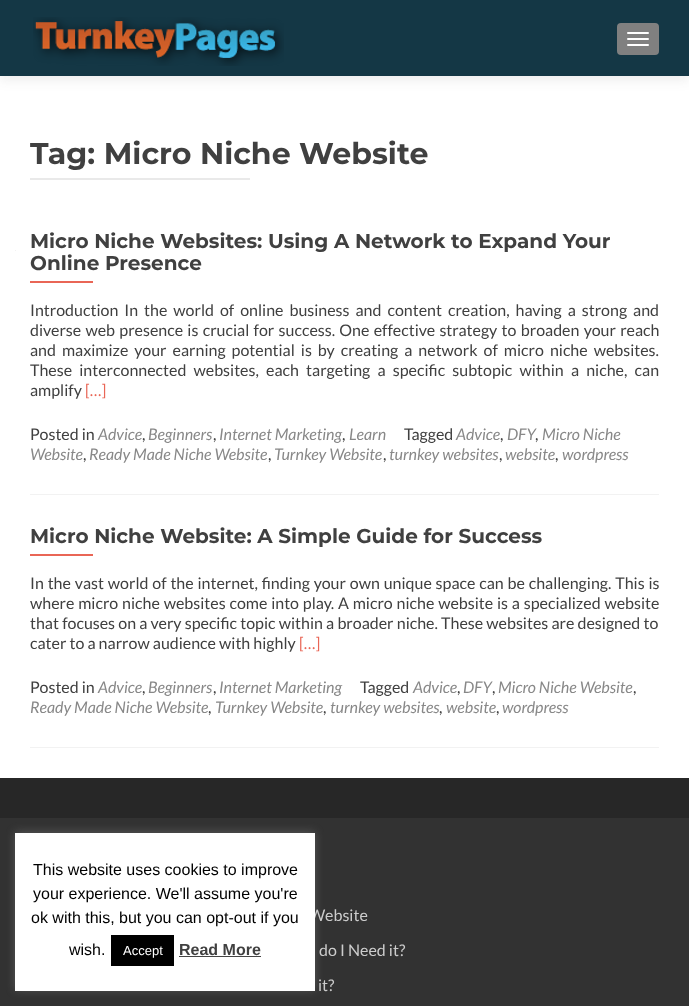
(async () => {
    const canvas = document.querySelector("canvas");
    canvas.width = 689;
    canvas.height = 1006;
    const context = canvas.getContext("2d");
    context.miterLimit = 4;
    context.fontKerning = "normal";
    function write(s, x, y, font, color) {
        context.font = font;
        context.fillStyle = color;
        context.fillText(s, x, y);
    }
    function block(x, y, w, h, color) {
        context.fillStyle = color;
        context.fillRect(x, y, w, h);
    }
    function card(x, y, w, h, r, color) {
        context.fillStyle = color;
        context.beginPath();
        context.roundRect(x, y, w, h, r);
        context.fill();
    }
    async function photo(src, x, y, w, h) {
        const img = new Image();
        img.src = src;
        await img.decode();
        context.drawImage(img, x, y, w, h);
    }

    block(0, 0, 689, 1006, "rgb(255, 255, 255)");
    context.fillStyle = "rgba(50, 50, 50, 0.08)";
    context.filter = "blur(5.5px)";
    context.beginPath();
    context.rect(0, 5, 689, 76);
    context.fill();
    context.filter = "none";
    block(0, 0, 689, 76, "rgb(20, 55, 69)");
    await photo("media/1.png", 33, 17, 251, 49);
    card(617, 23, 42, 32, 4, "rgb(128, 128, 128)");
    card(627, 32, 22, 2, 1, "rgb(255, 255, 255)");
    card(627, 38, 22, 2, 1, "rgb(255, 255, 255)");
    card(627, 44, 22, 2, 1, "rgb(255, 255, 255)");
    block(15, 250, 1, 1, "rgb(242, 242, 242)");
    write("Tag: Micro Niche Website", 30, 164, "bold 30px Montserrat", "rgb(64, 64, 64)");
    block(30, 178, 220, 2, "rgb(233, 233, 233)");
    block(30, 494, 629, 1, "rgb(242, 242, 242)");
    write("Micro Niche Websites: Using A Network to Expand Your", 30, 248, "bold 20px Montserrat", "rgb(64, 64, 64)");
    write("Online Presence", 30, 270, "bold 20px Montserrat", "rgb(64, 64, 64)");
    block(30, 281, 63, 2, "rgb(233, 102, 86)");
    context.wordSpacing = "2.9px";
    write("Introduction In the world of online business and content creation, having a strong and", 30, 316, "16px Lato", "rgb(64, 64, 64)");
    context.wordSpacing = "1.2px";
    write("diverse web presence is crucial for success. One effective strategy to broaden your reach", 30, 336, "16px Lato", "rgb(64, 64, 64)");
    context.wordSpacing = "2.9px";
    write("and maximize your earning potential is by creating a network of micro niche websites.", 30, 356, "16px Lato", "rgb(64, 64, 64)");
    context.wordSpacing = "4.1px";
    write("These interconnected websites, each targeting a specific subtopic within a niche, can", 30, 376, "16px Lato", "rgb(64, 64, 64)");
    context.wordSpacing = "0px";
    write("amplify", 30, 396, "16px Lato", "rgb(64, 64, 64)");
    write("[…]", 85, 396, "16px Lato", "rgb(233, 102, 86)");
    write("Posted in", 30, 440, "16px Lato", "rgb(64, 64, 64)");
    write("Advice", 98, 440, "italic 16px Lato", "rgb(136, 136, 136)");
    write(",", 142, 440, "16px Lato", "rgb(64, 64, 64)");
    write("Beginners", 148, 440, "italic 16px Lato", "rgb(136, 136, 136)");
    write(",", 213, 440, "16px Lato", "rgb(64, 64, 64)");
    write("Internet Marketing", 219, 440, "italic 16px Lato", "rgb(136, 136, 136)");
    write(",", 342, 440, "16px Lato", "rgb(64, 64, 64)");
    write("Learn", 349, 440, "italic 16px Lato", "rgb(136, 136, 136)");
    write("Tagged", 404, 440, "16px Lato", "rgb(64, 64, 64)");
    write("Advice", 456, 440, "italic 16px Lato", "rgb(136, 136, 136)");
    write(",", 500, 440, "16px Lato", "rgb(64, 64, 64)");
    write("DFY", 507, 440, "italic 16px Lato", "rgb(136, 136, 136)");
    write(",", 535, 440, "16px Lato", "rgb(64, 64, 64)");
    write("Micro Niche", 542, 440, "italic 16px Lato", "rgb(136, 136, 136)");
    write("Website", 30, 460, "italic 16px Lato", "rgb(136, 136, 136)");
    write(",", 83, 460, "16px Lato", "rgb(64, 64, 64)");
    write("Ready Made Niche Website", 89, 460, "italic 16px Lato", "rgb(136, 136, 136)");
    write(",", 268, 460, "16px Lato", "rgb(64, 64, 64)");
    write("Turnkey Website", 274, 460, "italic 16px Lato", "rgb(136, 136, 136)");
    write(",", 383, 460, "16px Lato", "rgb(64, 64, 64)");
    write("turnkey websites", 389, 460, "italic 16px Lato", "rgb(136, 136, 136)");
    write(",", 499, 460, "16px Lato", "rgb(64, 64, 64)");
    write("website", 505, 460, "italic 16px Lato", "rgb(136, 136, 136)");
    write(",", 555, 460, "16px Lato", "rgb(64, 64, 64)");
    write("wordpress", 562, 460, "italic 16px Lato", "rgb(136, 136, 136)");
    block(30, 747, 629, 1, "rgb(242, 242, 242)");
    write("Micro Niche Website: A Simple Guide for Success", 30, 543, "bold 20px Montserrat", "rgb(64, 64, 64)");
    block(30, 554, 63, 2, "rgb(233, 102, 86)");
    context.wordSpacing = "0.75px";
    write("In the vast world of the internet, finding your own unique space can be challenging. This is", 30, 589, "16px Lato", "rgb(64, 64, 64)");
    write("where micro niche websites come into play. A micro niche website is a specialized website", 30, 609, "16px Lato", "rgb(64, 64, 64)");
    context.wordSpacing = "0.1px";
    write("that focuses on a very specific topic within a broader niche. These websites are designed to", 30, 629, "16px Lato", "rgb(64, 64, 64)");
    context.wordSpacing = "0px";
    write("cater to a narrow audience with highly", 30, 649, "16px Lato", "rgb(64, 64, 64)");
    write("[…]", 299, 649, "16px Lato", "rgb(233, 102, 86)");
    write("Posted in", 30, 693, "16px Lato", "rgb(64, 64, 64)");
    write("Advice", 98, 693, "italic 16px Lato", "rgb(136, 136, 136)");
    write(",", 142, 693, "16px Lato", "rgb(64, 64, 64)");
    write("Beginners", 148, 693, "italic 16px Lato", "rgb(136, 136, 136)");
    write(",", 213, 693, "16px Lato", "rgb(64, 64, 64)");
    write("Internet Marketing", 219, 693, "italic 16px Lato", "rgb(136, 136, 136)");
    write("Tagged", 360, 693, "16px Lato", "rgb(64, 64, 64)");
    write("Advice", 413, 693, "italic 16px Lato", "rgb(136, 136, 136)");
    write(",", 457, 693, "16px Lato", "rgb(64, 64, 64)");
    write("DFY", 463, 693, "italic 16px Lato", "rgb(136, 136, 136)");
    write(",", 492, 693, "16px Lato", "rgb(64, 64, 64)");
    write("Micro Niche Website", 498, 693, "italic 16px Lato", "rgb(136, 136, 136)");
    write(",", 633, 693, "16px Lato", "rgb(64, 64, 64)");
    write("Ready Made Niche Website", 30, 713, "italic 16px Lato", "rgb(136, 136, 136)");
    write(",", 208, 713, "16px Lato", "rgb(64, 64, 64)");
    write("Turnkey Website", 215, 713, "italic 16px Lato", "rgb(136, 136, 136)");
    write(",", 323, 713, "16px Lato", "rgb(64, 64, 64)");
    write("turnkey websites", 330, 713, "italic 16px Lato", "rgb(136, 136, 136)");
    write(",", 439, 713, "16px Lato", "rgb(64, 64, 64)");
    write("website", 446, 713, "italic 16px Lato", "rgb(136, 136, 136)");
    write(",", 496, 713, "16px Lato", "rgb(64, 64, 64)");
    write("wordpress", 502, 713, "italic 16px Lato", "rgb(136, 136, 136)");
    block(0, 778, 689, 40, "rgb(39, 39, 39)");
    block(0, 818, 689, 188, "rgb(50, 50, 50)");
    write("Website", 309, 921, "16px Lato", "rgb(204, 204, 204)");
    write("do I Need it?", 319, 956, "16px Lato", "rgb(204, 204, 204)");
    write("it?", 318, 991, "16px Lato", "rgb(204, 204, 204)");
    context.fillStyle = "rgba(172, 171, 171, 0.3)";
    context.filter = "blur(5px)";
    context.beginPath();
    context.rect(15, 832, 300, 158);
    context.fill();
    context.filter = "none";
    block(15, 833, 300, 158, "rgb(255, 255, 255)");
    write("This website uses cookies to improve", 33, 875, "16px Liberation Sans", "rgb(0, 0, 0)");
    write("your experience. We'll assume you're", 33, 899, "16px Liberation Sans", "rgb(0, 0, 0)");
    write("ok with this, but you can opt-out if you", 31, 923, "16px Liberation Sans", "rgb(0, 0, 0)");
    write("wish.", 69, 955, "16px Liberation Sans", "rgb(0, 0, 0)");
    block(111, 935, 63, 31, "rgb(0, 0, 0)");
    write("Accept", 123, 955, "13px Liberation Sans", "rgb(255, 255, 255)");
    write("Read More", 179, 955, "bold 16px Liberation Sans", "rgb(64, 64, 64)");
    block(179, 956, 82, 1, "rgb(68, 68, 68)");
})();
